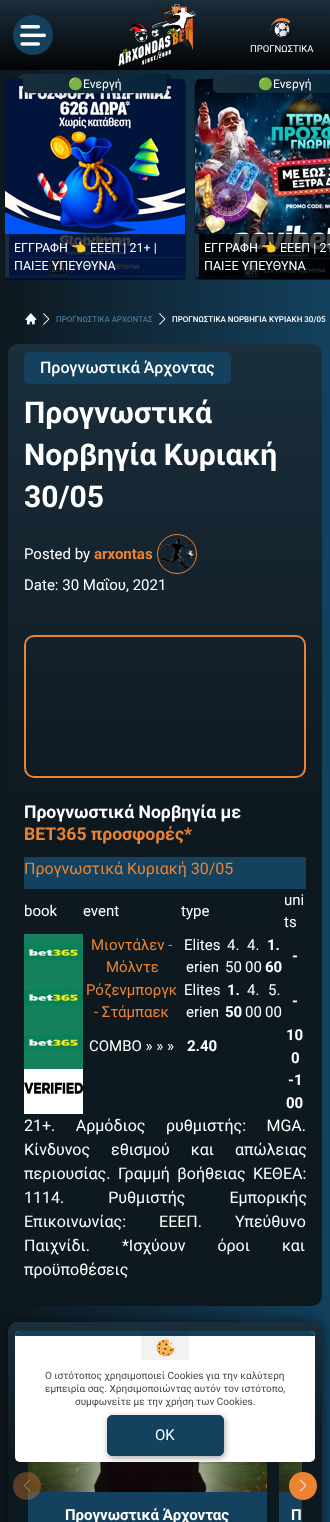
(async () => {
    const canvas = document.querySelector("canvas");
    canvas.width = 330;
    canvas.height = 1522;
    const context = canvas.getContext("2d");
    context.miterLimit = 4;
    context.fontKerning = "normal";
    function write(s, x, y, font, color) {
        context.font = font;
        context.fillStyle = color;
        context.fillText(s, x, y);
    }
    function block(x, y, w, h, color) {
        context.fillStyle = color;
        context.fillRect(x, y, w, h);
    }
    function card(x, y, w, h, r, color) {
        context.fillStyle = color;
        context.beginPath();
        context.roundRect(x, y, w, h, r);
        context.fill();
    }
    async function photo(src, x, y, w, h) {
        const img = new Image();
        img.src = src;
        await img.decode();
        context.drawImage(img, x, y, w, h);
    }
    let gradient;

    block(0, 0, 330, 1522, "rgb(255, 255, 255)");
    gradient = context.createLinearGradient(330, 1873, 0, 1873);
    gradient.addColorStop(0, "rgb(19, 65, 94)");
    gradient.addColorStop(1, "rgb(14, 24, 31)");
    context.fillStyle = gradient;
    context.fillRect(0, 70, 330, 1452);
    await photo("media/4.png", 4, 78, 182, 202);
    gradient = context.createLinearGradient(19, 77, 172, 77);
    gradient.addColorStop(0, "rgb(26, 46, 60)");
    gradient.addColorStop(1, "rgb(5, 37, 58)");
    context.fillStyle = gradient;
    context.beginPath();
    context.roundRect(19, 74, 153, 5, [5, 5, 0, 0]);
    context.fill();
    context.save();
    context.beginPath();
    context.rect(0, 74, 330, 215);
    context.clip();
    context.fillStyle = "rgba(0, 0, 0, 0.35)";
    context.filter = "blur(2px)";
    context.beginPath();
    context.roundRect(24, 74, 144, 20, 5);
    context.fill();
    context.filter = "none";
    context.restore();
    await photo("media/5.png", 194, 78, 136, 202);
    gradient = context.createLinearGradient(209, 77, 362, 77);
    gradient.addColorStop(0, "rgb(26, 46, 60)");
    gradient.addColorStop(1, "rgb(5, 37, 58)");
    context.fillStyle = gradient;
    context.beginPath();
    context.roundRect(209, 74, 121, 5, [5, 0, 0, 0]);
    context.fill();
    context.save();
    context.beginPath();
    context.rect(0, 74, 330, 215);
    context.clip();
    context.fillStyle = "rgba(0, 0, 0, 0.35)";
    context.filter = "blur(2px)";
    context.beginPath();
    context.roundRect(214, 74, 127, 20, 5);
    context.fill();
    context.filter = "none";
    context.restore();
    gradient = context.createLinearGradient(165, 0, 165, 70);
    gradient.addColorStop(0, "rgb(26, 46, 60)");
    gradient.addColorStop(1, "rgb(3, 3, 3)");
    context.fillStyle = gradient;
    context.fillRect(0, 0, 330, 70);
    context.fillStyle = "rgb(19, 65, 94)";
    context.beginPath();
    context.arc(33, 35, 20, 0, Math.PI * 2);
    context.fill();
    await photo("media/1.png", 20, 25, 26, 21);
    await photo("media/2.png", 118, 4, 79, 62);
    context.fillStyle = "rgb(236, 131, 49)";
    context.beginPath();
    context.moveTo(282, 21);
    context.bezierCurveTo(274, 21, 270.5, 25.5, 270, 30);
    context.lineTo(270.5, 30);
    context.bezierCurveTo(270.5, 19, 283.5, 14, 290.5, 21.5);
    context.lineTo(288.5, 23.5);
    context.bezierCurveTo(287, 22, 285, 21, 282, 21);
    context.closePath();
    context.fill();
    await photo("media/3.png", 274, 20, 17, 18);
    write("ΠΡΟΓΝΩΣΤΙΚΑ", 250, 52, "9.5px Roboto", "rgb(255, 255, 255)");
    gradient = context.createLinearGradient(23, 83, 167, 83);
    gradient.addColorStop(0, "rgb(26, 46, 60)");
    gradient.addColorStop(1, "rgb(5, 37, 58)");
    context.fillStyle = gradient;
    context.beginPath();
    context.roundRect(23, 74, 144, 19, [0, 0, 5, 5]);
    context.fill();
    write("🟢", 68, 88, "12px Noto Color Emoji", "rgb(255, 255, 255)");
    write("Ενεργή", 83, 88, "12px Roboto", "rgb(255, 255, 255)");
    context.fillStyle = "rgba(0, 0, 0, 0.75)";
    context.beginPath();
    context.roundRect(5, 234, 180, 45, [0, 0, 5, 5]);
    context.fill();
    block(5, 234, 4, 43, "rgb(26, 46, 60)");
    write("ΕΓΓΡΑΦΗ", 14, 252, "12.5px Roboto", "rgb(255, 255, 255)");
    write("👈", 71, 252, "12.5px Noto Color Emoji", "rgb(255, 255, 255)");
    write("ΕΕΕΠ | 21+ |", 90, 252, "12.5px Roboto", "rgb(255, 255, 255)");
    write("ΠΑΙΞΕ ΥΠΕΥΘΥΝΑ", 14, 270, "12.5px Roboto", "rgb(255, 255, 255)");
    gradient = context.createLinearGradient(213, 83, 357, 83);
    gradient.addColorStop(0, "rgb(26, 46, 60)");
    gradient.addColorStop(1, "rgb(5, 37, 58)");
    context.fillStyle = gradient;
    context.beginPath();
    context.roundRect(213, 74, 117, 19, [0, 0, 0, 5]);
    context.fill();
    write("🟢", 258, 88, "12px Noto Color Emoji", "rgb(255, 255, 255)");
    write("Ενεργή", 273, 88, "12px Roboto", "rgb(255, 255, 255)");
    context.fillStyle = "rgba(0, 0, 0, 0.75)";
    context.beginPath();
    context.roundRect(195, 234, 135, 45, [0, 0, 0, 5]);
    context.fill();
    block(195, 234, 4, 43, "rgb(26, 46, 60)");
    write("ΕΓΓΡΑΦΗ", 204, 252, "12.5px Roboto", "rgb(255, 255, 255)");
    write("👈", 261, 252, "12.5px Noto Color Emoji", "rgb(255, 255, 255)");
    write("ΕΕΕΠ | 21", 280, 252, "12.5px Roboto", "rgb(255, 255, 255)");
    write("ΠΑΙΞΕ ΥΠΕΥΘΥΝΑ", 204, 270, "12.5px Roboto", "rgb(255, 255, 255)");
    await photo("media/6.png", 25, 313, 12, 12);
    await photo("media/7.png", 43, 313, 7, 12);
    write("ΠΡΟΓΝΩΣΤΙΚΑ ΑΡΧΟΝΤΑΣ", 56, 322, "500 8px Roboto", "rgb(70, 120, 151)");
    await photo("media/8.png", 159, 313, 7, 12);
    write("ΠΡΟΓΝΩΣΤΙΚΑ ΝΟΡΒΗΓΙΑ ΚΥΡΙΑΚΗ 30/05", 172, 322, "500 8px Roboto", "rgb(255, 255, 255)");
    gradient = context.createLinearGradient(165, 344, 165, 1306);
    gradient.addColorStop(0, "rgb(26, 46, 60)");
    gradient.addColorStop(0.5, "rgb(14, 24, 31)");
    context.fillStyle = gradient;
    context.beginPath();
    context.roundRect(8, 344, 314, 962, 10);
    context.fill();
    card(24, 352, 207, 32, 6, "rgb(19, 65, 94)");
    write("Προγνωστικά Άρχοντας", 40, 373, "500 16px Roboto", "rgb(255, 255, 255)");
    write("Προγνωστικά", 24, 423, "bold 30px Roboto", "rgb(255, 255, 255)");
    write("Νορβηγία Κυριακή", 24, 465, "bold 30px Roboto", "rgb(255, 255, 255)");
    write("30/05", 24, 507, "bold 30px Roboto", "rgb(255, 255, 255)");
    write("Posted by", 24, 559, "15px Roboto", "rgb(255, 255, 255)");
    write("arxontas", 94, 559, "bold 15px Roboto", "rgb(236, 131, 49)");
    context.beginPath();
    context.arc(177, 554, 19.5, 0, Math.PI * 2);
    context.strokeStyle = "rgb(236, 131, 49)";
    context.stroke();
    await photo("media/9.png", 159, 538, 36, 32);
    write("Date: 30 Μαΐου, 2021", 24, 590, "15px Roboto", "rgb(255, 255, 255)");
    context.beginPath();
    context.roundRect(25, 636, 280, 141, 9);
    context.lineWidth = 2;
    context.stroke();
    write("Προγνωστικά Νορβηγία με", 24, 818, "bold 17.6px Roboto", "rgb(255, 255, 255)");
    write("BET365 προσφορές*", 24, 840, "bold 17.6px Roboto", "rgb(236, 131, 49)");
    block(24, 857, 282, 32, "rgb(19, 65, 94)");
    write("Προγνωστικά Κυριακή 30/05", 24, 874, "16px Roboto", "rgb(236, 131, 49)");
    write("book", 24, 916, "15px Roboto", "rgb(255, 255, 255)");
    write("event", 83, 916, "15px Roboto", "rgb(255, 255, 255)");
    write("type", 181, 916, "15px Roboto", "rgb(255, 255, 255)");
    write("uni", 284, 905, "15px Roboto", "rgb(255, 255, 255)");
    write("ts", 284, 927, "15px Roboto", "rgb(255, 255, 255)");
    block(24, 934, 59, 135, "rgb(20, 128, 94)");
    await photo("media/10.png", 24, 945, 59, 15);
    write("Μιοντάλεν -", 91, 950, "15px Roboto", "rgb(236, 131, 49)");
    write("Μόλντε", 106, 972, "15px Roboto", "rgb(236, 131, 49)");
    write("Elites", 184, 950, "15px Roboto", "rgb(255, 255, 255)");
    write("erien", 186, 972, "15px Roboto", "rgb(255, 255, 255)");
    write("4.", 227, 950, "15px Roboto", "rgb(255, 255, 255)");
    write("50", 225, 972, "15px Roboto", "rgb(255, 255, 255)");
    write("4.", 247, 950, "15px Roboto", "rgb(255, 255, 255)");
    write("00", 245, 972, "15px Roboto", "rgb(255, 255, 255)");
    write("1.", 267, 950, "bold 15px Roboto", "rgb(255, 255, 255)");
    write("60", 265, 972, "bold 15px Roboto", "rgb(255, 255, 255)");
    write("-", 292, 961, "bold 15px Roboto", "rgb(255, 255, 255)");
    await photo("media/10.png", 24, 990, 59, 15);
    write("Ρόζενμποργκ", 86, 995, "15px Roboto", "rgb(236, 131, 49)");
    write("- Στάμπαεκ", 94, 1017, "15px Roboto", "rgb(236, 131, 49)");
    write("Elites", 184, 995, "15px Roboto", "rgb(255, 255, 255)");
    write("erien", 186, 1017, "15px Roboto", "rgb(255, 255, 255)");
    write("1.", 227, 995, "bold 15px Roboto", "rgb(255, 255, 255)");
    write("50", 225, 1017, "bold 15px Roboto", "rgb(255, 255, 255)");
    write("4.", 247, 995, "15px Roboto", "rgb(255, 255, 255)");
    write("00", 245, 1017, "15px Roboto", "rgb(255, 255, 255)");
    write("5.", 268, 995, "15px Roboto", "rgb(255, 255, 255)");
    write("00", 265, 1017, "15px Roboto", "rgb(255, 255, 255)");
    write("-", 292, 1006, "bold 15px Roboto", "rgb(255, 255, 255)");
    await photo("media/10.png", 24, 1035, 59, 15);
    write("COMBO » » »", 89, 1051, "15px Roboto", "rgb(255, 255, 255)");
    write("2.40", 187, 1051, "bold 15px Roboto", "rgb(255, 255, 255)");
    write("10", 286, 1040, "bold 15px Roboto", "rgb(255, 255, 255)");
    write("0", 291, 1063, "bold 15px Roboto", "rgb(255, 255, 255)");
    block(24, 1069, 59, 45, "rgb(255, 255, 255)");
    await photo("media/11.png", 24, 1082, 59, 12);
    write("-1", 288, 1085, "bold 15px Roboto", "rgb(255, 255, 255)");
    write("00", 286, 1108, "bold 15px Roboto", "rgb(255, 255, 255)");
    context.wordSpacing = "16.5px";
    write("21+. Αρμόδιος ρυθμιστής: MGA.", 24, 1131, "16px Roboto", "rgb(255, 255, 255)");
    context.wordSpacing = "17px";
    write("Κίνδυνος εθισμού και απώλειας", 24, 1155, "16px Roboto", "rgb(255, 255, 255)");
    context.wordSpacing = "3.5px";
    write("περιουσίας. Γραμμή βοήθειας ΚΕΘΕΑ:", 24, 1179, "16px Roboto", "rgb(255, 255, 255)");
    context.wordSpacing = "40px";
    write("1114. Ρυθμιστής Εμπορικής", 24, 1203, "16px Roboto", "rgb(255, 255, 255)");
    context.wordSpacing = "29px";
    write("Επικοινωνίας: ΕΕΕΠ. Υπεύθυνο", 24, 1227, "16px Roboto", "rgb(255, 255, 255)");
    context.wordSpacing = "28px";
    write("Παιχνίδι. *Ισχύουν όροι και", 24, 1251, "16px Roboto", "rgb(255, 255, 255)");
    context.wordSpacing = "0px";
    write("προϋποθέσεις", 24, 1275, "16px Roboto", "rgb(255, 255, 255)");
    context.fillStyle = "rgba(0, 0, 0, 0.6)";
    context.filter = "blur(7.5px)";
    context.beginPath();
    context.roundRect(8, 1322, 314, 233, 10);
    context.fill();
    context.filter = "none";
    gradient = context.createLinearGradient(165, 1322, 165, 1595);
    gradient.addColorStop(0, "rgb(26, 46, 60)");
    gradient.addColorStop(0.5, "rgb(14, 24, 31)");
    context.fillStyle = gradient;
    context.beginPath();
    context.roundRect(8, 1322, 314, 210, 10);
    context.fill();
    gradient = context.createLinearGradient(18, 1322, 18, 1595);
    gradient.addColorStop(0, "rgb(26, 46, 60)");
    gradient.addColorStop(0.5, "rgb(14, 24, 31)");
    context.fillStyle = gradient;
    context.beginPath();
    context.moveTo(18, 1322);
    context.lineTo(28, 1322);
    context.lineTo(28, 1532);
    context.lineTo(18, 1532);
    context.bezierCurveTo(12.5, 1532, 8, 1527.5, 8, 1522);
    context.lineTo(8, 1332);
    context.bezierCurveTo(8, 1326.5, 12.5, 1322, 18, 1322);
    context.closePath();
    context.fill();
    gradient = context.createLinearGradient(312, 1322, 312, 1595);
    gradient.addColorStop(0, "rgb(26, 46, 60)");
    gradient.addColorStop(0.5, "rgb(14, 24, 31)");
    context.fillStyle = gradient;
    context.beginPath();
    context.moveTo(302, 1322);
    context.lineTo(312, 1322);
    context.bezierCurveTo(317.5, 1322, 322, 1326.5, 322, 1332);
    context.lineTo(322, 1522);
    context.bezierCurveTo(322, 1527.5, 317.5, 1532, 312, 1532);
    context.lineTo(302, 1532);
    context.closePath();
    context.fill();
    block(28, 1492, 239, 30, "rgb(19, 65, 94)");
    await photo("media/14.png", 28, 1462, 239, 30);
    context.fillStyle = "rgba(236, 131, 49, 0.35)";
    context.beginPath();
    context.arc(27, 1486, 14, 0, Math.PI * 2);
    context.fill();
    await photo("media/12.png", 24, 1479, 6, 13);
    block(279, 1492, 23, 30, "rgb(19, 65, 94)");
    await photo("media/15.png", 279, 1462, 23, 30);
    context.fillStyle = "rgb(236, 131, 49)";
    context.beginPath();
    context.arc(303, 1486, 14, 0, Math.PI * 2);
    context.fill();
    await photo("media/13.png", 300, 1479, 7, 13);
    write("Προγνωστικά Άρχοντας", 65, 1520, "bold 15px Roboto", "rgb(255, 255, 255)");
    write("Π", 291, 1520, "bold 15px Roboto", "rgb(255, 255, 255)");
    card(15, 1331, 300, 131, 5, "rgb(255, 255, 255)");
    context.fillStyle = "rgb(19, 65, 94)";
    context.beginPath();
    context.roundRect(15, 1331, 300, 5, [5, 5, 0, 0]);
    context.fill();
    block(141, 1331, 48, 29, "rgba(0, 0, 0, 0.05)");
    await photo("media/16.png", 156, 1339, 19, 18);
    write("Ο ιστότοπος χρησιμοποιεί Cookies για την καλύτερη", 45, 1379, "10px Roboto", "rgb(68, 68, 68)");
    write("εμπειρία σας. Χρησιμοποιώντας αυτόν τον ιστότοπο,", 45, 1392, "10px Roboto", "rgb(68, 68, 68)");
    write("συμφωνείτε με την χρήση των Cookies.", 75, 1405, "10px Roboto", "rgb(68, 68, 68)");
    context.fillStyle = "rgba(0, 0, 0, 0.35)";
    context.filter = "blur(3px)";
    context.beginPath();
    context.roundRect(108, 1417, 117, 41, 5);
    context.fill();
    context.filter = "none";
    context.fillStyle = "rgb(19, 65, 94)";
    context.beginPath();
    context.roundRect(107.5, 1415.5, 116, 40, 4.5);
    context.fill();
    context.strokeStyle = "rgb(19, 65, 94)";
    context.lineWidth = 1;
    context.stroke();
    write("OK", 155, 1440, "15px Roboto", "rgb(255, 255, 255)");
})();
